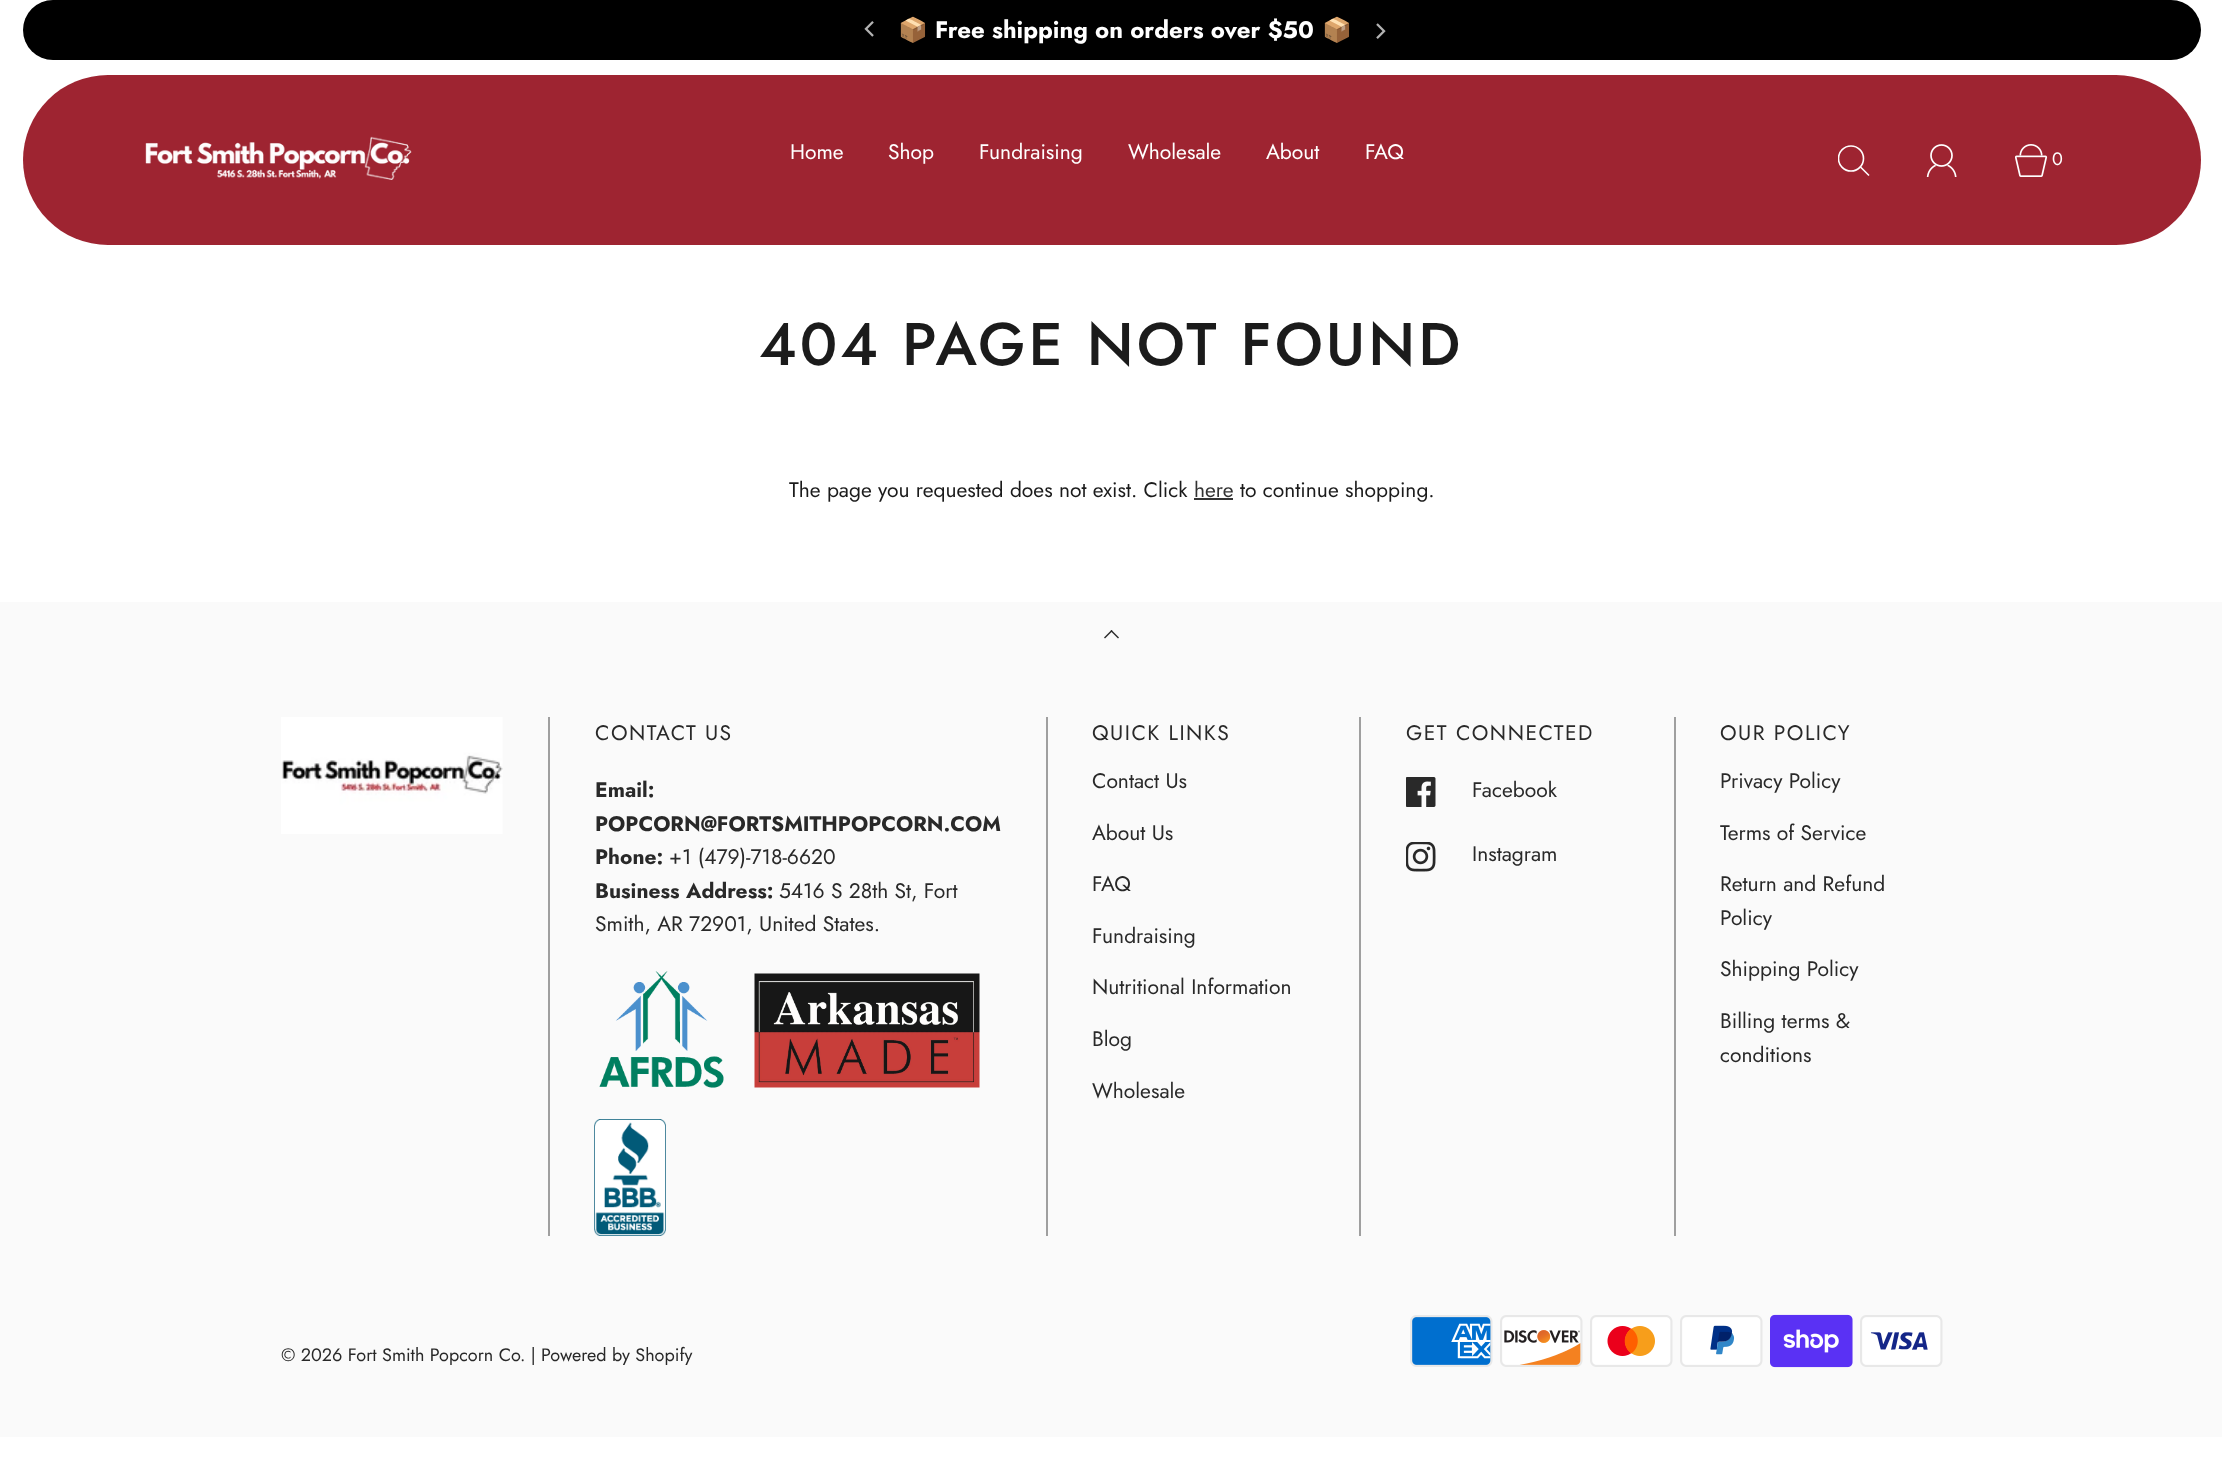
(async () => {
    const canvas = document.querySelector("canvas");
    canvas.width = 2222;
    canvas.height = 1473;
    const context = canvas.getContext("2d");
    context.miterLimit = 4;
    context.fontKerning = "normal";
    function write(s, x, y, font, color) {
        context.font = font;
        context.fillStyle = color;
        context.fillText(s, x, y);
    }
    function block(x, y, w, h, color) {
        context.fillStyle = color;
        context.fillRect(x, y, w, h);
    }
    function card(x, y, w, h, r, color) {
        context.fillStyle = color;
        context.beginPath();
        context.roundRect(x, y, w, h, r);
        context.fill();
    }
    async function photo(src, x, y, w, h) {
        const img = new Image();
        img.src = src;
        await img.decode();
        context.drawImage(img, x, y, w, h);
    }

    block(0, 0, 2222, 1473, "rgb(255, 255, 255)");
    card(23, 0, 2178, 60, 30, "rgb(0, 0, 0)");
    await photo("media/1.png", 864, 21, 10, 16);
    write("📦", 898, 38, "bold 24px Noto Color Emoji", "rgb(255, 255, 255)");
    write("Free shipping on orders over $50", 935, 38, "bold 24px Jost", "rgb(255, 255, 255)");
    write("📦", 1322, 38, "bold 24px Noto Color Emoji", "rgb(255, 255, 255)");
    await photo("media/2.png", 1376, 23, 10, 16);
    card(23, 75, 2178, 170, 85, "rgb(158, 36, 49)");
    await photo("media/3.png", 145, 136, 267, 44);
    write("Home", 790, 159, "21px Jost", "rgb(255, 255, 255)");
    write("Shop", 888, 159, "21px Jost", "rgb(255, 255, 255)");
    write("Fundraising", 979, 159, "21px Jost", "rgb(255, 255, 255)");
    write("Wholesale", 1128, 159, "21px Jost", "rgb(255, 255, 255)");
    write("About", 1266, 159, "21px Jost", "rgb(255, 255, 255)");
    write("FAQ", 1365, 159, "21px Jost", "rgb(255, 255, 255)");
    context.save();
    context.beginPath();
    context.rect(1838, 144, 33, 33);
    context.clip();
    context.beginPath();
    context.arc(1851, 158.5, 12.5, 0, Math.PI * 2);
    context.strokeStyle = "rgb(255, 255, 255)";
    context.lineWidth = 1.6;
    context.stroke();
    context.restore();
    context.beginPath();
    context.moveTo(1860, 166.5);
    context.lineTo(1869, 175.5);
    context.strokeStyle = "rgb(255, 255, 255)";
    context.lineWidth = 1.6;
    context.stroke();
    await photo("media/4.png", 1926, 144, 31, 33);
    await photo("media/5.png", 2015, 144, 33, 33);
    write("0", 2052, 165, "18px Jost", "rgb(255, 255, 255)");
    context.letterSpacing = "3px";
    write("404 PAGE NOT FOUND", 759, 365, "500 60px Jost", "rgb(27, 27, 27)");
    context.letterSpacing = "0px";
    write("The page you requested does not exist. Click", 789, 497, "21px Jost", "rgb(27, 27, 27)");
    write("here", 1194, 497, "21px Jost", "rgb(51, 51, 51)");
    block(1194, 498, 39, 2, "rgb(51, 51, 51)");
    write("to continue shopping.", 1240, 497, "21px Jost", "rgb(27, 27, 27)");
    block(0, 602, 2222, 835, "rgb(250, 250, 250)");
    context.fillStyle = "rgb(41, 41, 41)";
    context.beginPath();
    context.moveTo(1105, 638.5);
    context.lineTo(1104, 637.5);
    context.lineTo(1111.5, 630);
    context.lineTo(1112.5, 631);
    context.closePath();
    context.fill();
    context.beginPath();
    context.moveTo(1118, 638.5);
    context.lineTo(1110.5, 631);
    context.lineTo(1111.5, 630);
    context.lineTo(1119, 637.5);
    context.closePath();
    context.fill();
    await photo("media/6.png", 281, 717, 222, 117);
    block(548, 717, 2, 519, "rgb(159, 159, 159)");
    context.letterSpacing = "1.5px";
    write("CONTACT US", 595, 740, "21px Jost", "rgb(41, 41, 41)");
    context.letterSpacing = "0px";
    write("Email:", 595, 797, "bold 21px Jost", "rgb(41, 41, 41)");
    write("POPCORN@FORTSMITHPOPCORN.COM", 595, 831, "bold 21px Jost", "rgb(41, 41, 41)");
    write("Phone:", 595, 864, "bold 21px Jost", "rgb(41, 41, 41)");
    write("+1 (479)-718-6620", 669, 864, "21px Jost", "rgb(41, 41, 41)");
    write("Business Address:", 595, 898, "bold 21px Jost", "rgb(41, 41, 41)");
    write("5416 S 28th St, Fort", 779, 898, "21px Jost", "rgb(41, 41, 41)");
    write("Smith, AR 72901, United States.", 595, 931, "21px Jost", "rgb(41, 41, 41)");
    await photo("media/7.png", 599, 971, 125, 117);
    await photo("media/8.png", 754, 973, 226, 115);
    await photo("media/9.png", 594, 1119, 72, 117);
    block(1046, 717, 2, 519, "rgb(159, 159, 159)");
    context.letterSpacing = "1.5px";
    write("QUICK LINKS", 1092, 740, "21px Jost", "rgb(41, 41, 41)");
    context.letterSpacing = "0px";
    write("Contact Us", 1092, 788, "21px Jost", "rgb(41, 41, 41)");
    write("About Us", 1092, 840, "21px Jost", "rgb(41, 41, 41)");
    write("FAQ", 1092, 891, "21px Jost", "rgb(41, 41, 41)");
    write("Fundraising", 1092, 943, "21px Jost", "rgb(41, 41, 41)");
    write("Nutritional Information", 1092, 994, "21px Jost", "rgb(41, 41, 41)");
    write("Blog", 1092, 1046, "21px Jost", "rgb(41, 41, 41)");
    write("Wholesale", 1092, 1098, "21px Jost", "rgb(41, 41, 41)");
    block(1359, 717, 2, 519, "rgb(159, 159, 159)");
    context.letterSpacing = "1.5px";
    write("GET CONNECTED", 1406, 740, "21px Jost", "rgb(41, 41, 41)");
    await photo("media/10.png", 1406, 777, 30, 30);
    context.letterSpacing = "0px";
    write("Facebook", 1472, 797, "21px Jost", "rgb(41, 41, 41)");
    await photo("media/11.png", 1406, 842, 30, 30);
    write("Instagram", 1472, 861, "21px Jost", "rgb(41, 41, 41)");
    block(1674, 717, 2, 519, "rgb(159, 159, 159)");
    context.letterSpacing = "1.5px";
    write("OUR POLICY", 1720, 740, "21px Jost", "rgb(41, 41, 41)");
    context.letterSpacing = "0px";
    write("Privacy Policy", 1720, 788, "21px Jost", "rgb(41, 41, 41)");
    write("Terms of Service", 1720, 840, "21px Jost", "rgb(41, 41, 41)");
    write("Return and Refund", 1720, 891, "21px Jost", "rgb(41, 41, 41)");
    write("Policy", 1720, 925, "21px Jost", "rgb(41, 41, 41)");
    write("Shipping Policy", 1720, 976, "21px Jost", "rgb(41, 41, 41)");
    write("Billing terms &", 1720, 1028, "21px Jost", "rgb(41, 41, 41)");
    write("conditions", 1720, 1062, "21px Jost", "rgb(41, 41, 41)");
    write("© 2026 Fort Smith Popcorn Co. | Powered by Shopify", 281, 1361, "18px Jost", "rgb(41, 41, 41)");
    await photo("media/12.png", 1410, 1315, 83, 52);
    await photo("media/13.png", 1500, 1315, 83, 52);
    await photo("media/14.png", 1590, 1315, 83, 52);
    await photo("media/15.png", 1680, 1315, 83, 52);
    await photo("media/16.png", 1770, 1314, 83, 54);
    await photo("media/17.png", 1860, 1315, 83, 52);
})();
